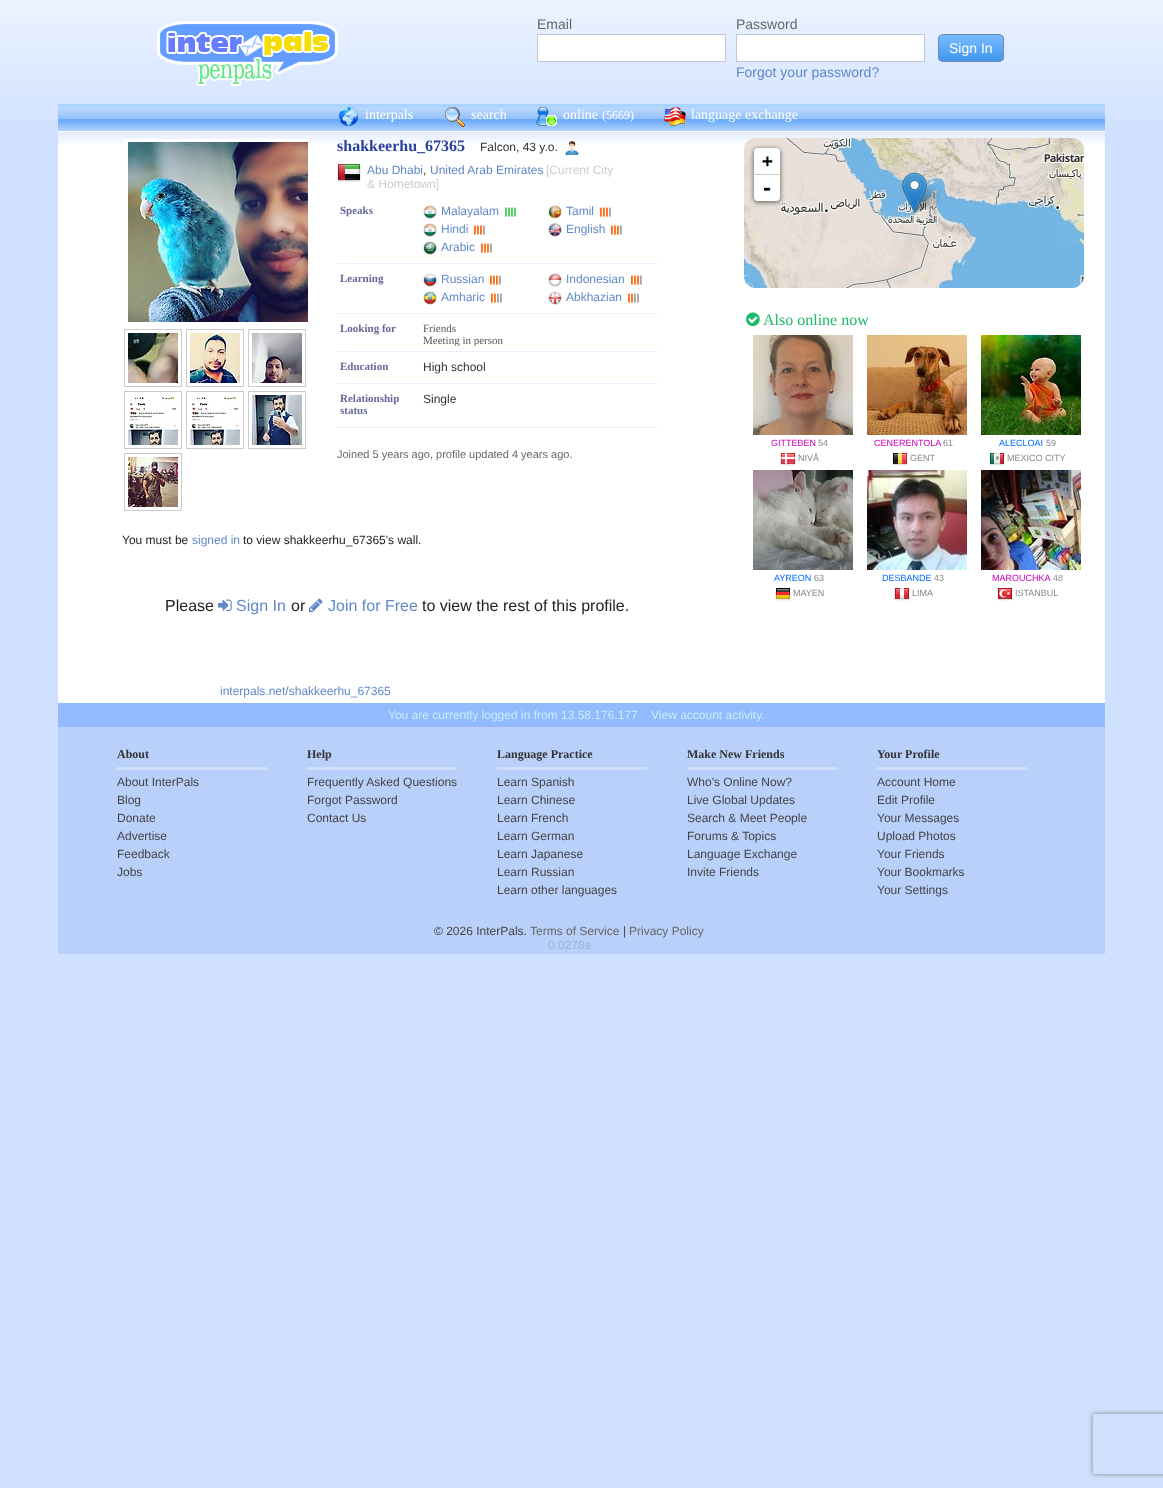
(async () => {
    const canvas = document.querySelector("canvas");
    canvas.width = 1163;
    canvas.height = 1488;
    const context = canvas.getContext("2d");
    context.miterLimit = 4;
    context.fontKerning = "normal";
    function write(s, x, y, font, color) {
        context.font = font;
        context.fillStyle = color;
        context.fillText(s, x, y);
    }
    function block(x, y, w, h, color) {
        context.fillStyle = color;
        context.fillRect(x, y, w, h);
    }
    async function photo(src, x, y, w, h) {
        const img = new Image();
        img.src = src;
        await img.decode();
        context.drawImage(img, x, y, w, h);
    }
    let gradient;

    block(0, 0, 1163, 1488, "rgb(208, 225, 255)");
    await photo("media/1.png", 0, 0, 1163, 120);
    await photo("media/2.png", 157, 21, 181, 65);
    write("Email", 537, 29, "14px Liberation Sans", "rgb(102, 102, 102)");
    context.fillStyle = "rgb(255, 255, 255)";
    context.beginPath();
    context.rect(537.5, 34.5, 188, 27);
    context.fill();
    context.strokeStyle = "rgb(189, 199, 216)";
    context.stroke();
    write("Password", 736, 29, "14px Liberation Sans", "rgb(102, 102, 102)");
    context.fillStyle = "rgb(255, 255, 255)";
    context.beginPath();
    context.rect(736.5, 34.5, 188, 27);
    context.fill();
    context.stroke();
    write("Forgot your password?", 736, 77, "14px Liberation Sans", "rgb(96, 136, 200)");
    context.save();
    context.beginPath();
    context.roundRect(938, 34, 66, 28, 5);
    context.clip();
    gradient = context.createLinearGradient(971, 35, 971, 61);
    gradient.addColorStop(0, "rgb(122, 188, 255)");
    gradient.addColorStop(0.44, "rgb(96, 171, 248)");
    gradient.addColorStop(1, "rgb(64, 150, 238)");
    context.fillStyle = gradient;
    context.fillRect(938, 35, 66, 26);
    context.restore();
    context.beginPath();
    context.roundRect(938.5, 34.5, 65, 27, 4.5);
    context.strokeStyle = "rgb(110, 137, 188)";
    context.stroke();
    write("Sign In", 949, 53, "14px Liberation Sans", "rgb(255, 255, 255)");
    block(58, 104, 1047, 3, "rgb(169, 210, 255)");
    await photo("media/3.png", 58, 107, 1047, 24);
    block(58, 131, 1047, 1, "rgb(255, 255, 255)");
    await photo("media/4.png", 339, 107, 19, 19);
    write("interpals", 365, 119, "14px Liberation Serif", "rgb(255, 255, 255)");
    await photo("media/5.png", 445, 107, 20, 20);
    write("search", 471, 119, "14px Liberation Serif", "rgb(255, 255, 255)");
    await photo("media/6.png", 536, 107, 21, 19);
    write("online", 563, 119, "14px Liberation Serif", "rgb(255, 255, 255)");
    write("(5669)", 602, 119, "12px Liberation Serif", "rgb(255, 255, 255)");
    await photo("media/7.png", 664, 107, 22, 19);
    write("language exchange", 691, 119, "14px Liberation Serif", "rgb(255, 255, 255)");
    block(58, 144, 1047, 559, "rgb(255, 255, 255)");
    await photo("media/8.png", 58, 132, 1047, 12);
    block(124, 139, 186, 5, "rgb(255, 255, 255)");
    await photo("media/9.png", 128, 142, 180, 180);
    context.strokeStyle = "rgb(204, 204, 204)";
    context.strokeRect(124.5, 329.5, 57, 57);
    await photo("media/10.png", 128, 333, 50, 50);
    context.strokeRect(186.5, 329.5, 57, 57);
    await photo("media/11.png", 190, 333, 50, 50);
    context.strokeRect(248.5, 329.5, 57, 57);
    await photo("media/12.png", 252, 333, 50, 50);
    context.strokeRect(124.5, 391.5, 57, 57);
    await photo("media/13.png", 128, 395, 50, 50);
    context.strokeRect(186.5, 391.5, 57, 57);
    await photo("media/13.png", 190, 395, 50, 50);
    context.strokeRect(248.5, 391.5, 57, 57);
    await photo("media/14.png", 252, 395, 50, 50);
    context.strokeRect(124.5, 453.5, 57, 57);
    await photo("media/15.png", 128, 457, 50, 50);
    write("shakkeerhu_67365", 337, 151, "bold 16px Liberation Serif", "rgb(41, 66, 160)");
    write("Falcon, 43 y.o.", 480, 151, "12px Liberation Sans", "rgb(51, 51, 51)");
    await photo("media/16.png", 565, 141, 14, 14);
    await photo("media/17.png", 337, 164, 24, 18);
    write("Abu Dhabi", 367, 174, "12px Liberation Sans", "rgb(96, 136, 200)");
    write(",", 423, 174, "12px Liberation Sans", "rgb(51, 51, 51)");
    write("United Arab Emirates", 430, 174, "12px Liberation Sans", "rgb(96, 136, 200)");
    write("[Current City", 546, 174, "12px Liberation Sans", "rgb(204, 204, 204)");
    write("& Hometown]", 367, 188, "12px Liberation Sans", "rgb(204, 204, 204)");
    block(337, 263, 320, 1, "rgb(238, 238, 255)");
    write("Speaks", 340, 214, "bold 11px Liberation Serif", "rgb(102, 102, 153)");
    await photo("media/18.png", 423, 205, 14, 14);
    write("Malayalam", 441, 215, "12px Liberation Sans", "rgb(96, 136, 200)");
    await photo("media/19.png", 505, 207, 11, 10);
    await photo("media/20.png", 548, 205, 14, 14);
    write("Tamil", 566, 215, "12px Liberation Sans", "rgb(96, 136, 200)");
    await photo("media/21.png", 600, 207, 11, 10);
    await photo("media/22.png", 423, 223, 14, 14);
    write("Hindi", 441, 233, "12px Liberation Sans", "rgb(96, 136, 200)");
    await photo("media/21.png", 474, 225, 11, 10);
    await photo("media/23.png", 548, 223, 14, 14);
    write("English", 566, 233, "12px Liberation Sans", "rgb(96, 136, 200)");
    await photo("media/21.png", 611, 225, 11, 10);
    await photo("media/24.png", 423, 241, 14, 14);
    write("Arabic", 441, 251, "12px Liberation Sans", "rgb(96, 136, 200)");
    await photo("media/21.png", 481, 243, 11, 10);
    block(337, 313, 320, 1, "rgb(238, 238, 255)");
    write("Learning", 340, 282, "bold 11px Liberation Serif", "rgb(102, 102, 153)");
    await photo("media/25.png", 423, 273, 14, 14);
    write("Russian", 441, 283, "12px Liberation Sans", "rgb(96, 136, 200)");
    await photo("media/21.png", 490, 275, 11, 10);
    await photo("media/26.png", 548, 273, 14, 14);
    write("Indonesian", 566, 283, "12px Liberation Sans", "rgb(96, 136, 200)");
    await photo("media/21.png", 631, 275, 11, 10);
    await photo("media/27.png", 423, 291, 14, 14);
    write("Amharic", 441, 301, "12px Liberation Sans", "rgb(96, 136, 200)");
    await photo("media/28.png", 491, 293, 11, 10);
    await photo("media/29.png", 548, 291, 14, 14);
    write("Abkhazian", 566, 301, "12px Liberation Sans", "rgb(96, 136, 200)");
    await photo("media/28.png", 628, 293, 11, 10);
    block(337, 351, 320, 1, "rgb(238, 238, 255)");
    write("Looking for", 340, 332, "bold 11px Liberation Serif", "rgb(102, 102, 153)");
    write("Friends", 423, 332, "11px Liberation Serif", "rgb(85, 85, 85)");
    context.save();
    context.beginPath();
    context.rect(423, 319, 234, 27);
    context.clip();
    write("Meeting in person", 423, 344, "11px Liberation Serif", "rgb(85, 85, 85)");
    context.restore();
    block(337, 383, 320, 1, "rgb(238, 238, 255)");
    write("Education", 340, 370, "bold 11px Liberation Serif", "rgb(102, 102, 153)");
    write("High school", 423, 371, "12px Liberation Sans", "rgb(51, 51, 51)");
    block(337, 427, 320, 1, "rgb(238, 238, 255)");
    write("Relationship", 340, 402, "bold 11px Liberation Serif", "rgb(102, 102, 153)");
    write("status", 340, 414, "bold 11px Liberation Serif", "rgb(102, 102, 153)");
    write("Single", 423, 403, "12px Liberation Sans", "rgb(51, 51, 51)");
    write("Joined 5 years ago, profile updated 4 years ago.", 337, 458, "11px Liberation Sans", "rgb(102, 102, 102)");
    write("You must be", 122, 544, "12px Liberation Sans", "rgb(34, 34, 34)");
    write("signed in", 192, 544, "12px Liberation Sans", "rgb(96, 136, 200)");
    write("to view shakkeerhu_67365's wall.", 243, 544, "12px Liberation Sans", "rgb(34, 34, 34)");
    write("Please", 165, 611, "16px Liberation Sans", "rgb(34, 34, 34)");
    await photo("media/30.png", 218, 599, 14, 12);
    write("Sign In", 236, 611, "16px Liberation Sans", "rgb(96, 136, 200)");
    write("or", 291, 611, "16px Liberation Sans", "rgb(34, 34, 34)");
    await photo("media/31.png", 309, 598, 14, 15);
    write("Join for Free", 328, 611, "16px Liberation Sans", "rgb(96, 136, 200)");
    write("to view the rest of this profile.", 422, 611, "16px Liberation Sans", "rgb(34, 34, 34)");
    write("interpals.net/shakkeerhu_67365", 220, 695, "12px Liberation Sans", "rgb(96, 136, 200)");
    await photo("media/32.png", 744, 138, 340, 150);
    await photo("media/33.png", 744, 138, 63, 106);
    await photo("media/34.png", 807, 138, 256, 106);
    await photo("media/35.png", 1063, 138, 21, 106);
    await photo("media/36.png", 744, 244, 63, 44);
    await photo("media/37.png", 807, 244, 256, 44);
    await photo("media/38.png", 1063, 244, 21, 44);
    await photo("media/40.png", 912, 185, 29, 28);
    await photo("media/39.png", 902, 172, 25, 41);
    context.fillStyle = "rgba(0, 0, 0, 0.65)";
    context.filter = "blur(2.5px)";
    context.beginPath();
    context.roundRect(754, 149, 26, 53, 4);
    context.fill();
    context.filter = "none";
    context.fillStyle = "rgb(255, 255, 255)";
    context.beginPath();
    context.roundRect(754, 148, 26, 27, [4, 4, 0, 0]);
    context.fill();
    block(754, 174, 26, 1, "rgb(204, 204, 204)");
    write("+", 762, 167, "bold 18px DejaVu Sans Mono", "rgb(0, 0, 0)");
    context.fillStyle = "rgb(255, 255, 255)";
    context.beginPath();
    context.roundRect(754, 175, 26, 26, [0, 0, 4, 4]);
    context.fill();
    write("-", 761, 195, "bold 20px DejaVu Sans Mono", "rgb(0, 0, 0)");
    await photo("media/41.png", 746, 312, 14, 15);
    write("Also online now", 763, 325, "16px Liberation Serif", "rgb(27, 187, 105)");
    await photo("media/42.png", 753, 335, 100, 100);
    write("GITTEBEN", 771, 446, "9px Liberation Sans", "rgb(200, 0, 189)");
    write("54", 818, 446, "9px Liberation Sans", "rgb(136, 136, 136)");
    await photo("media/43.png", 780, 453, 16, 13);
    write("NIVÅ", 798, 461, "9px Liberation Sans", "rgb(136, 136, 136)");
    await photo("media/44.png", 867, 335, 100, 100);
    write("CENERENTOLA", 874, 446, "9px Liberation Sans", "rgb(200, 0, 189)");
    write("61", 943, 446, "9px Liberation Sans", "rgb(136, 136, 136)");
    await photo("media/45.png", 892, 453, 16, 13);
    write("GENT", 910, 461, "9px Liberation Sans", "rgb(136, 136, 136)");
    await photo("media/46.png", 981, 335, 100, 100);
    write("ALECLOAI", 999, 446, "9px Liberation Sans", "rgb(0, 106, 255)");
    write("59", 1046, 446, "9px Liberation Sans", "rgb(136, 136, 136)");
    await photo("media/47.png", 989, 453, 16, 13);
    write("MEXICO CITY", 1007, 461, "9px Liberation Sans", "rgb(136, 136, 136)");
    await photo("media/48.png", 753, 470, 100, 100);
    write("AYREON", 774, 581, "9px Liberation Sans", "rgb(0, 106, 255)");
    write("63", 814, 581, "9px Liberation Sans", "rgb(136, 136, 136)");
    await photo("media/49.png", 775, 588, 16, 13);
    write("MAYEN", 793, 596, "9px Liberation Sans", "rgb(136, 136, 136)");
    await photo("media/50.png", 867, 470, 100, 100);
    write("DESBANDE", 882, 581, "9px Liberation Sans", "rgb(0, 106, 255)");
    write("43", 934, 581, "9px Liberation Sans", "rgb(136, 136, 136)");
    await photo("media/51.png", 894, 588, 16, 13);
    write("LIMA", 912, 596, "9px Liberation Sans", "rgb(136, 136, 136)");
    await photo("media/52.png", 981, 470, 100, 100);
    write("MAROUCHKA", 992, 581, "9px Liberation Sans", "rgb(200, 0, 189)");
    write("48", 1053, 581, "9px Liberation Sans", "rgb(136, 136, 136)");
    await photo("media/53.png", 997, 588, 16, 13);
    write("ISTANBUL", 1015, 596, "9px Liberation Sans", "rgb(136, 136, 136)");
    block(58, 703, 1047, 24, "rgb(146, 186, 255)");
    write("You are currently logged in from 13.58.176.177", 388, 719, "12px Liberation Sans", "rgb(203, 237, 252)");
    write("View account activity.", 651, 719, "12px Liberation Sans", "rgb(203, 237, 252)");
    block(58, 727, 1047, 227, "rgb(184, 208, 250)");
    block(117, 767, 150, 3, "rgb(206, 222, 251)");
    write("About", 117, 758, "bold 12px Liberation Serif", "rgb(51, 51, 51)");
    write("About InterPals", 117, 786, "12px Liberation Sans", "rgb(68, 68, 68)");
    write("Blog", 117, 804, "12px Liberation Sans", "rgb(68, 68, 68)");
    write("Donate", 117, 822, "12px Liberation Sans", "rgb(68, 68, 68)");
    write("Advertise", 117, 840, "12px Liberation Sans", "rgb(68, 68, 68)");
    write("Feedback", 117, 858, "12px Liberation Sans", "rgb(68, 68, 68)");
    write("Jobs", 117, 876, "12px Liberation Sans", "rgb(68, 68, 68)");
    block(307, 767, 150, 3, "rgb(206, 222, 251)");
    write("Help", 307, 758, "bold 12px Liberation Serif", "rgb(51, 51, 51)");
    write("Frequently Asked Questions", 307, 786, "12px Liberation Sans", "rgb(68, 68, 68)");
    write("Forgot Password", 307, 804, "12px Liberation Sans", "rgb(68, 68, 68)");
    write("Contact Us", 307, 822, "12px Liberation Sans", "rgb(68, 68, 68)");
    block(497, 767, 150, 3, "rgb(206, 222, 251)");
    write("Language Practice", 497, 758, "bold 12px Liberation Serif", "rgb(51, 51, 51)");
    write("Learn Spanish", 497, 786, "12px Liberation Sans", "rgb(68, 68, 68)");
    write("Learn Chinese", 497, 804, "12px Liberation Sans", "rgb(68, 68, 68)");
    write("Learn French", 497, 822, "12px Liberation Sans", "rgb(68, 68, 68)");
    write("Learn German", 497, 840, "12px Liberation Sans", "rgb(68, 68, 68)");
    write("Learn Japanese", 497, 858, "12px Liberation Sans", "rgb(68, 68, 68)");
    write("Learn Russian", 497, 876, "12px Liberation Sans", "rgb(68, 68, 68)");
    write("Learn other languages", 497, 894, "12px Liberation Sans", "rgb(68, 68, 68)");
    block(687, 767, 150, 3, "rgb(206, 222, 251)");
    write("Make New Friends", 687, 758, "bold 12px Liberation Serif", "rgb(51, 51, 51)");
    write("Who's Online Now?", 687, 786, "12px Liberation Sans", "rgb(68, 68, 68)");
    write("Live Global Updates", 687, 804, "12px Liberation Sans", "rgb(68, 68, 68)");
    write("Search & Meet People", 687, 822, "12px Liberation Sans", "rgb(68, 68, 68)");
    write("Forums & Topics", 687, 840, "12px Liberation Sans", "rgb(68, 68, 68)");
    write("Language Exchange", 687, 858, "12px Liberation Sans", "rgb(68, 68, 68)");
    write("Invite Friends", 687, 876, "12px Liberation Sans", "rgb(68, 68, 68)");
    block(877, 767, 150, 3, "rgb(206, 222, 251)");
    write("Your Profile", 877, 758, "bold 12px Liberation Serif", "rgb(51, 51, 51)");
    write("Account Home", 877, 786, "12px Liberation Sans", "rgb(68, 68, 68)");
    write("Edit Profile", 877, 804, "12px Liberation Sans", "rgb(68, 68, 68)");
    write("Your Messages", 877, 822, "12px Liberation Sans", "rgb(68, 68, 68)");
    write("Upload Photos", 877, 840, "12px Liberation Sans", "rgb(68, 68, 68)");
    write("Your Friends", 877, 858, "12px Liberation Sans", "rgb(68, 68, 68)");
    write("Your Bookmarks", 877, 876, "12px Liberation Sans", "rgb(68, 68, 68)");
    write("Your Settings", 877, 894, "12px Liberation Sans", "rgb(68, 68, 68)");
    write("© 2026 InterPals.", 434, 935, "12px Liberation Sans", "rgb(68, 68, 68)");
    write("Terms of Service", 530, 935, "12px Liberation Sans", "rgb(102, 102, 102)");
    write("|", 623, 935, "12px Liberation Sans", "rgb(68, 68, 68)");
    write("Privacy Policy", 629, 935, "12px Liberation Sans", "rgb(102, 102, 102)");
    write("0.0278s", 548, 949, "12px Liberation Sans", "rgb(144, 185, 204)");
    context.save();
    context.beginPath();
    context.moveTo(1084, 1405);
    context.lineTo(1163, 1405);
    context.lineTo(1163, 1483);
    context.lineTo(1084, 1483);
    context.closePath();
    context.moveTo(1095, 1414);
    context.lineTo(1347, 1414);
    context.bezierCurveTo(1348, 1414, 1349, 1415, 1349, 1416);
    context.lineTo(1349, 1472);
    context.bezierCurveTo(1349, 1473, 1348, 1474, 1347, 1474);
    context.lineTo(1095, 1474);
    context.bezierCurveTo(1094, 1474, 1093, 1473, 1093, 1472);
    context.lineTo(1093, 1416);
    context.bezierCurveTo(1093, 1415, 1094, 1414, 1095, 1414);
    context.closePath();
    context.clip("evenodd");
    context.fillStyle = "rgb(128, 128, 128)";
    context.filter = "blur(2.5px)";
    context.beginPath();
    context.roundRect(1093, 1414, 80, 60, 2);
    context.fill();
    context.filter = "none";
    context.restore();
})();
